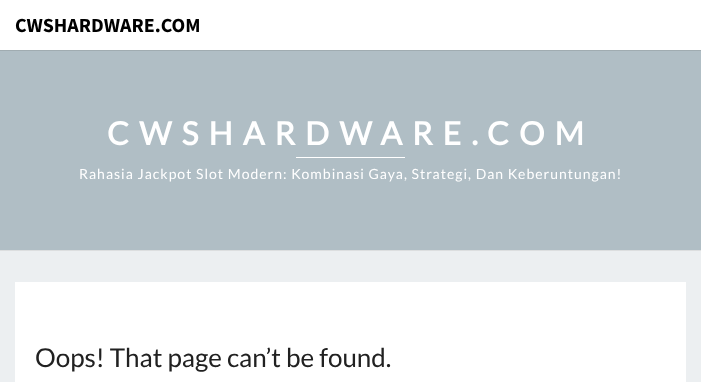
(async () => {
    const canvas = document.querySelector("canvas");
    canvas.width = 701;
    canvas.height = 382;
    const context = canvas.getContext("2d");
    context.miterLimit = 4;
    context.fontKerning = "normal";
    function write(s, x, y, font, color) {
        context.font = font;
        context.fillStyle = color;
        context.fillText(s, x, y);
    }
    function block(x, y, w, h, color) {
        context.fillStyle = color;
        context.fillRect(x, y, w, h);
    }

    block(0, 0, 701, 382, "rgb(236, 239, 241)");
    context.fillStyle = "rgba(182, 182, 182, 0.3)";
    context.filter = "blur(0.5px)";
    context.beginPath();
    context.rect(-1, 49, 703, 202);
    context.fill();
    context.filter = "none";
    block(0, 50, 701, 200, "rgb(176, 190, 197)");
    context.fillStyle = "rgba(100, 100, 100, 0.2)";
    context.filter = "blur(0.5px)";
    context.beginPath();
    context.rect(0, 1, 701, 50);
    context.fill();
    context.filter = "none";
    block(0, 0, 701, 50, "rgb(255, 255, 255)");
    write("CWSHARDWARE.COM", 15, 32, "bold 20px Source Sans Pro", "rgb(0, 0, 0)");
    context.letterSpacing = "10px";
    write("CWSHARDWARE.COM", 107, 145, "bold 32px Lato", "rgb(255, 255, 255)");
    block(296, 157, 109, 1, "rgb(255, 255, 255)");
    context.letterSpacing = "1px";
    write("Rahasia Jackpot Slot Modern: Kombinasi Gaya, Strategi, Dan Keberuntungan!", 79, 179, "14px Lato", "rgb(255, 255, 255)");
    block(15, 282, 671, 100, "rgb(255, 255, 255)");
    context.letterSpacing = "0px";
    write("Oops! That page can’t be found.", 35, 367, "26px Lato", "rgb(33, 33, 33)");
})();
